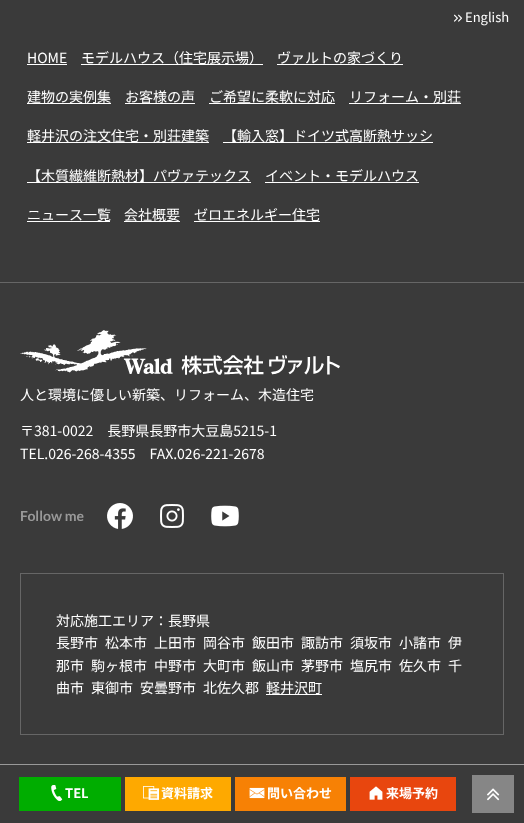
(async () => {
    const canvas = document.querySelector("canvas");
    canvas.width = 524;
    canvas.height = 823;
    const context = canvas.getContext("2d");
    context.miterLimit = 4;
    context.fontKerning = "normal";
    function write(s, x, y, font, color) {
        context.font = font;
        context.fillStyle = color;
        context.fillText(s, x, y);
    }
    function block(x, y, w, h, color) {
        context.fillStyle = color;
        context.fillRect(x, y, w, h);
    }
    async function photo(src, x, y, w, h) {
        const img = new Image();
        img.src = src;
        await img.decode();
        context.drawImage(img, x, y, w, h);
    }

    block(0, 0, 524, 823, "rgb(58, 58, 58)");
    await photo("media/1.png", 454, 14, 8, 8);
    write("English", 465, 22, "13px Noto Sans JP", "rgb(255, 255, 255)");
    block(0, 282, 524, 1, "rgb(102, 102, 102)");
    write("HOME", 27, 63, "14px Noto Sans JP", "rgb(255, 255, 255)");
    block(27, 64, 40, 1, "rgb(255, 255, 255)");
    block(81, 64, 182, 1, "rgb(255, 255, 255)");
    write("モデルハウス（住宅展示場）", 81, 63, "14px Noto Sans JP", "rgb(255, 255, 255)");
    block(277, 64, 126, 1, "rgb(255, 255, 255)");
    write("ヴァルトの家づくり", 277, 63, "14px Noto Sans JP", "rgb(255, 255, 255)");
    block(27, 103, 84, 1, "rgb(255, 255, 255)");
    write("建物の実例集", 27, 102, "14px Noto Sans JP", "rgb(255, 255, 255)");
    block(125, 103, 70, 1, "rgb(255, 255, 255)");
    write("お客様の声", 125, 102, "14px Noto Sans JP", "rgb(255, 255, 255)");
    block(209, 103, 126, 1, "rgb(255, 255, 255)");
    write("ご希望に柔軟に対応", 209, 102, "14px Noto Sans JP", "rgb(255, 255, 255)");
    block(349, 103, 112, 1, "rgb(255, 255, 255)");
    write("リフォーム・別荘", 349, 102, "14px Noto Sans JP", "rgb(255, 255, 255)");
    block(27, 142, 182, 1, "rgb(255, 255, 255)");
    write("軽井沢の注文住宅・別荘建築", 27, 141, "14px Noto Sans JP", "rgb(255, 255, 255)");
    block(223, 142, 210, 1, "rgb(255, 255, 255)");
    write("【輸入窓】ドイツ式高断熱サッシ", 223, 141, "14px Noto Sans JP", "rgb(255, 255, 255)");
    block(27, 182, 224, 1, "rgb(255, 255, 255)");
    write("【木質繊維断熱材】パヴァテックス", 27, 181, "14px Noto Sans JP", "rgb(255, 255, 255)");
    write("イベント・モデルハウス", 265, 181, "14px Noto Sans JP", "rgb(255, 255, 255)");
    block(265, 182, 154, 1, "rgb(255, 255, 255)");
    block(27, 221, 83, 1, "rgb(255, 255, 255)");
    write("ニュース一覧", 27, 220, "14px Noto Sans JP", "rgb(255, 255, 255)");
    block(124, 221, 56, 1, "rgb(255, 255, 255)");
    write("会社概要", 124, 220, "14px Noto Sans JP", "rgb(255, 255, 255)");
    block(194, 221, 126, 1, "rgb(255, 255, 255)");
    write("ゼロエネルギー住宅", 194, 220, "14px Noto Sans JP", "rgb(255, 255, 255)");
    await photo("media/2.png", 20, 330, 320, 45);
    write("人と環境に優しい新築、リフォーム、木造住宅", 20, 400, "14px Noto Sans JP", "rgb(255, 255, 255)");
    write("〒381-0022　長野県長野市大豆島5215-1", 20, 436, "14px Noto Sans JP", "rgb(255, 255, 255)");
    write("TEL.026-268-4355　FAX.026-221-2678", 20, 459, "14px Noto Sans JP", "rgb(255, 255, 255)");
    write("Follow me", 20, 521, "bold 14px Lato", "rgb(153, 153, 153)");
    await photo("media/3.png", 107, 503, 26, 26);
    await photo("media/4.png", 160, 504, 24, 24);
    await photo("media/5.png", 211, 505, 28, 22);
    context.strokeStyle = "rgb(102, 102, 102)";
    context.strokeRect(20.5, 573.5, 483, 161);
    write("対応施工エリア：長野県", 56, 626, "14px Noto Sans JP", "rgb(255, 255, 255)");
    write("長野市 松本市 上田市 岡谷市 飯田市 諏訪市 須坂市 小諸市 伊", 56, 648, "14px Noto Sans JP", "rgb(255, 255, 255)");
    write("那市 駒ヶ根市 中野市 大町市 飯山市 茅野市 塩尻市 佐久市 千", 56, 671, "14px Noto Sans JP", "rgb(255, 255, 255)");
    write("曲市 東御市 安曇野市 北佐久郡", 56, 693, "14px Noto Sans JP", "rgb(255, 255, 255)");
    block(266, 694, 56, 1, "rgb(255, 255, 255)");
    write("軽井沢町", 266, 693, "14px Noto Sans JP", "rgb(255, 255, 255)");
    block(0, 764, 524, 1, "rgb(153, 153, 153)");
    block(19, 777, 102, 34, "rgb(0, 173, 0)");
    await photo("media/6.png", 51, 785, 12, 16);
    write("TEL", 65, 798, "bold 13px Noto Sans JP", "rgb(255, 255, 255)");
    block(125, 777, 106, 34, "rgb(254, 169, 0)");
    await photo("media/7.png", 143, 786, 16, 14);
    write("資料請求", 161, 798, "bold 13px Noto Sans JP", "rgb(255, 255, 255)");
    block(235, 777, 111, 34, "rgb(247, 129, 5)");
    await photo("media/8.png", 249, 787, 16, 12);
    write("問い合わせ", 267, 798, "bold 13px Noto Sans JP", "rgb(255, 255, 255)");
    block(350, 777, 106, 34, "rgb(232, 70, 14)");
    await photo("media/9.png", 369, 786, 14, 14);
    write("来場予約", 386, 798, "bold 13px Noto Sans JP", "rgb(255, 255, 255)");
    block(472, 775, 42, 38, "rgb(134, 134, 134)");
    await photo("media/10.png", 487, 788, 13, 13);
})();
